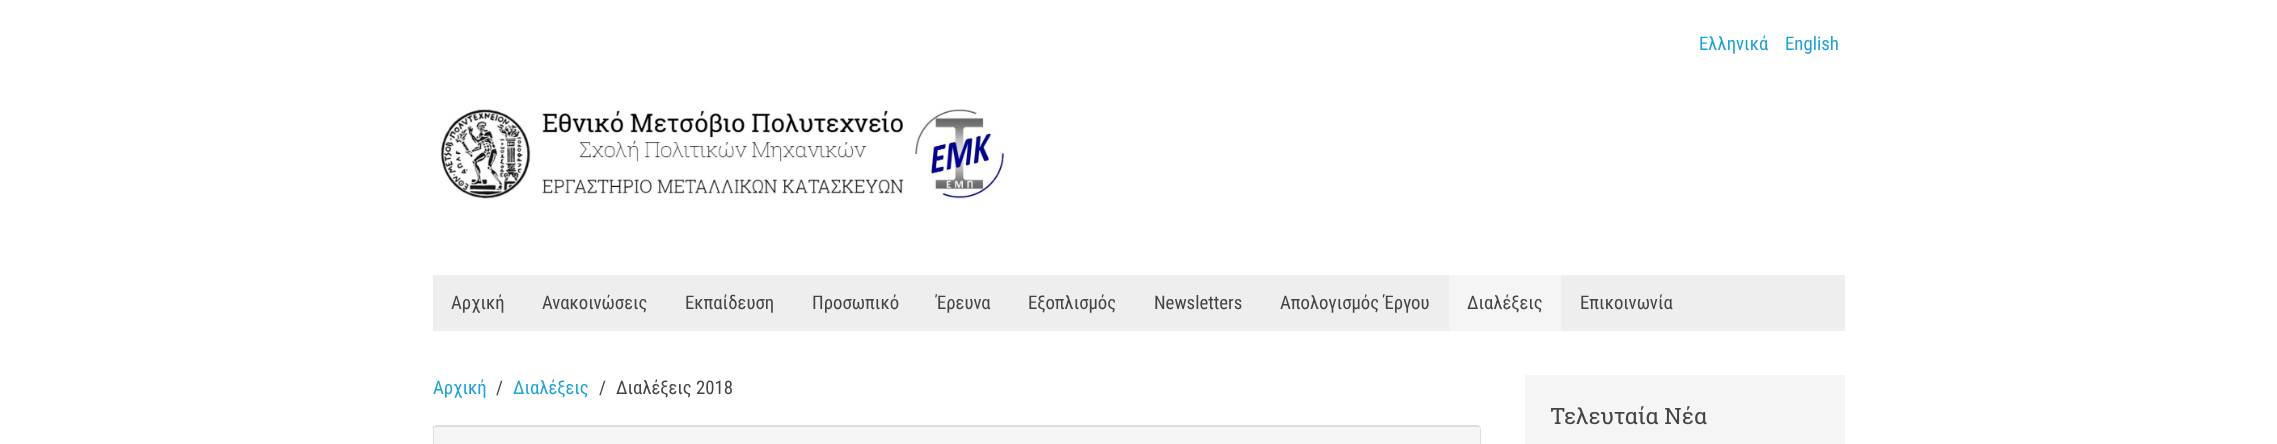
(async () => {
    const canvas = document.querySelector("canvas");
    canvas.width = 2277;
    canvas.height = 444;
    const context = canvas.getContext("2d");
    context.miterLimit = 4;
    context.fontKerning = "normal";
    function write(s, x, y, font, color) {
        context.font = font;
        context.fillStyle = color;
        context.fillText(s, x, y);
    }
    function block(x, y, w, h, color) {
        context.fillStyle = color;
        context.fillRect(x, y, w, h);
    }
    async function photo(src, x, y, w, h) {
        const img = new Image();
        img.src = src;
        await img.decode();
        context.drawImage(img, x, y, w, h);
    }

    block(0, 0, 2277, 444, "rgb(255, 255, 255)");
    write("Ελληνικά", 1699, 50, "18.75px Roboto Condensed", "rgb(31, 162, 214)");
    write("English", 1785, 50, "18.75px Roboto Condensed", "rgb(31, 162, 214)");
    await photo("media/1.png", 440, 109, 568, 90);
    block(433, 275, 1412, 56, "rgb(238, 238, 238)");
    write("Αρχική", 451, 309, "18.75px Roboto Condensed", "rgb(68, 68, 68)");
    write("Ανακοινώσεις", 542, 309, "18.75px Roboto Condensed", "rgb(68, 68, 68)");
    write("Εκπαίδευση", 685, 309, "18.75px Roboto Condensed", "rgb(68, 68, 68)");
    write("Προσωπικό", 812, 309, "18.75px Roboto Condensed", "rgb(68, 68, 68)");
    write("Έρευνα", 936, 309, "18.75px Roboto Condensed", "rgb(68, 68, 68)");
    write("Εξοπλισμός", 1028, 309, "18.75px Roboto Condensed", "rgb(68, 68, 68)");
    write("Newsletters", 1154, 309, "18.75px Roboto Condensed", "rgb(68, 68, 68)");
    write("Απολογισμός Έργου", 1280, 309, "18.75px Roboto Condensed", "rgb(68, 68, 68)");
    block(1449, 275, 112, 56, "rgb(245, 245, 245)");
    write("Διαλέξεις", 1467, 309, "18.75px Roboto Condensed", "rgb(68, 68, 68)");
    write("Επικοινωνία", 1580, 309, "18.75px Roboto Condensed", "rgb(68, 68, 68)");
    write("Αρχική", 433, 394, "18.75px Roboto Condensed", "rgb(31, 162, 214)");
    write("/", 496, 394, "18.75px Roboto Condensed", "rgb(68, 68, 68)");
    write("Διαλέξεις", 513, 394, "18.75px Roboto Condensed", "rgb(31, 162, 214)");
    write("/", 599, 394, "18.75px Roboto Condensed", "rgb(68, 68, 68)");
    write("Διαλέξεις 2018", 616, 394, "18.75px Roboto Condensed", "rgb(68, 68, 68)");
    context.fillStyle = "rgb(221, 221, 221)";
    context.beginPath();
    context.moveTo(438, 425);
    context.lineTo(1476, 425);
    context.bezierCurveTo(1479, 425, 1481, 427, 1481, 430);
    context.lineTo(1481, 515);
    context.bezierCurveTo(1481, 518, 1479, 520, 1476, 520);
    context.lineTo(438, 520);
    context.bezierCurveTo(435, 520, 432, 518, 432, 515);
    context.lineTo(432, 430);
    context.bezierCurveTo(432, 427, 435, 425, 438, 425);
    context.closePath();
    context.moveTo(438, 426);
    context.lineTo(1476, 426);
    context.bezierCurveTo(1478, 426, 1480, 428, 1480, 430);
    context.lineTo(1480, 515);
    context.bezierCurveTo(1480, 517, 1478, 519, 1476, 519);
    context.lineTo(438, 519);
    context.bezierCurveTo(435, 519, 432, 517, 432, 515);
    context.lineTo(432, 430);
    context.bezierCurveTo(432, 428, 435, 426, 438, 426);
    context.closePath();
    context.fill("evenodd");
    block(434, 427, 1046, 17, "rgb(245, 245, 245)");
    block(433, 426, 1047, 1, "rgb(221, 221, 221)");
    block(433, 426, 1, 18, "rgb(221, 221, 221)");
    block(1525, 375, 320, 69, "rgb(245, 245, 245)");
    write("Τελευταία Νέα", 1550, 424, "22.5px Roboto Slab", "rgb(68, 68, 68)");
})();
